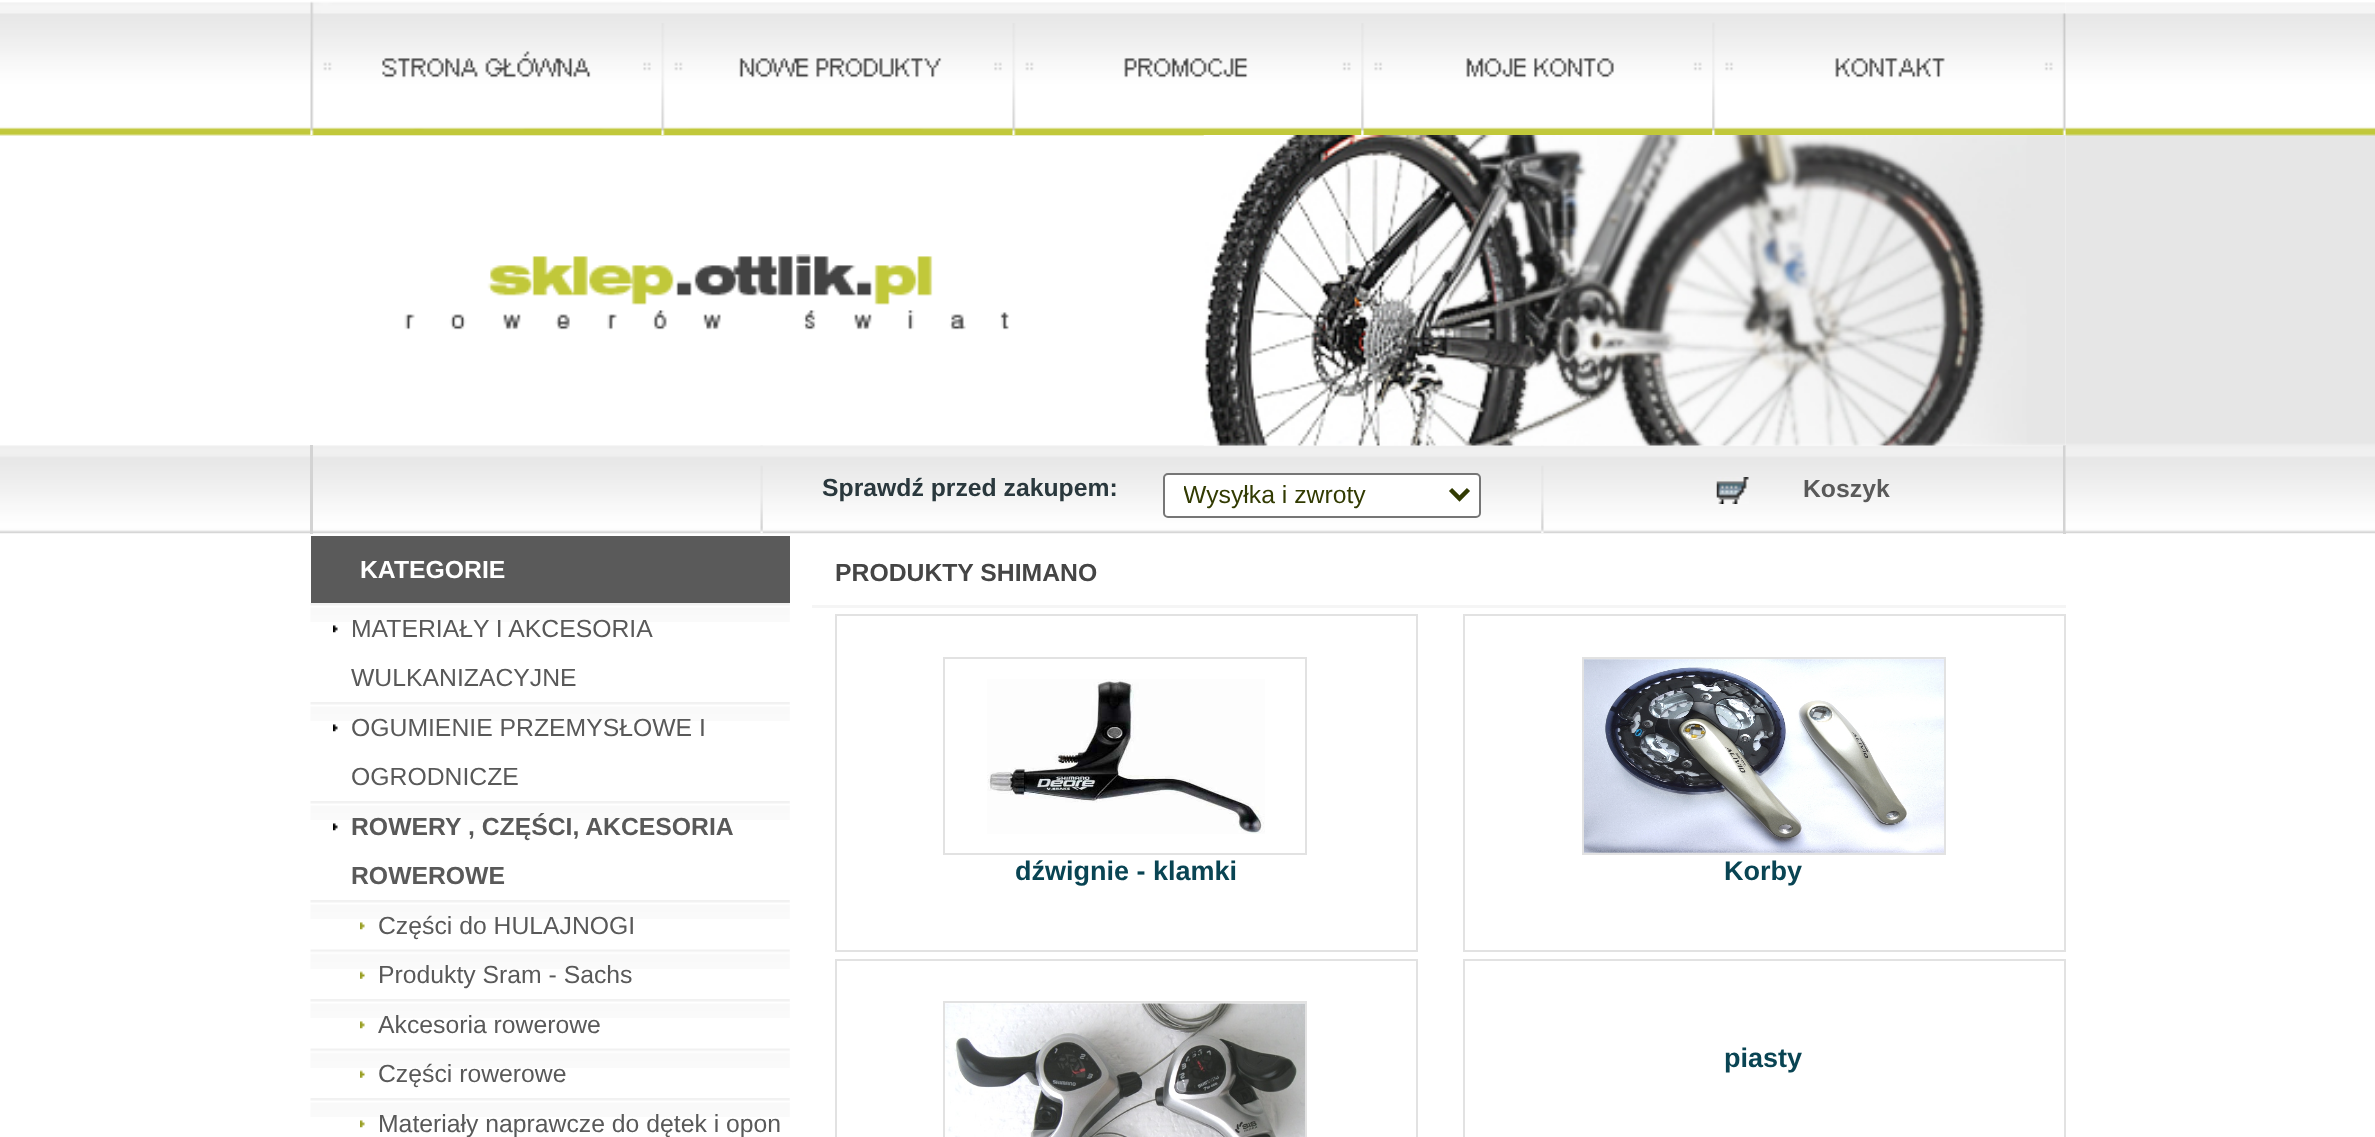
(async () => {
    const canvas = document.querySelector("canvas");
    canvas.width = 2375;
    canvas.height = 1137;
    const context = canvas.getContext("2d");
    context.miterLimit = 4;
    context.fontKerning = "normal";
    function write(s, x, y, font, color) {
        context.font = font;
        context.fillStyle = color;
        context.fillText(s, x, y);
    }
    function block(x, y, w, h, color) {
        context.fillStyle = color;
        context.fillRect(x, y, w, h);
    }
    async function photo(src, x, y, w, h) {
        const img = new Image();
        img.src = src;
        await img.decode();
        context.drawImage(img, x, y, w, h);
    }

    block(0, 0, 2375, 1137, "rgb(255, 255, 255)");
    await photo("media/1.png", 0, 2, 311, 532);
    await photo("media/3.png", 310, 2, 1756, 532);
    block(2063, 445, 3, 89, "rgb(211, 211, 211)");
    await photo("media/2.png", 2065, 2, 310, 532);
    await photo("media/4.png", 310, 1, 352, 134);
    await photo("media/5.png", 661, 23, 352, 112);
    await photo("media/6.png", 1012, 23, 350, 112);
    await photo("media/7.png", 1361, 23, 352, 112);
    await photo("media/8.png", 1712, 13, 354, 122);
    await photo("media/9.png", 404, 254, 605, 76);
    await photo("media/12.png", 1541, 445, 3, 88);
    await photo("media/10.png", 1203, 135, 863, 311);
    block(310, 445, 3, 89, "rgb(211, 211, 211)");
    await photo("media/11.png", 760, 445, 3, 88);
    write("Sprawdź przed zakupem:", 822, 496, "bold 24.75px Liberation Sans", "rgb(42, 56, 61)");
    context.fillStyle = "rgb(255, 255, 255)";
    context.beginPath();
    context.roundRect(1164, 474, 316, 43, 4);
    context.fill();
    context.strokeStyle = "rgb(118, 118, 118)";
    context.lineWidth = 2;
    context.stroke();
    context.beginPath();
    context.moveTo(1450.5, 489.5);
    context.lineTo(1459.5, 498.5);
    context.lineTo(1468.5, 489.5);
    context.strokeStyle = "rgb(50, 59, 2)";
    context.lineWidth = 4.5;
    context.stroke();
    context.save();
    context.beginPath();
    context.rect(1184, 479, 258, 32);
    context.clip();
    write("Wysyłka i zwroty", 1183, 503, "24.75px Liberation Sans", "rgb(50, 59, 2)");
    context.restore();
    await photo("media/13.png", 1716, 477, 33, 27);
    write("Koszyk", 1803, 497, "bold 24.75px Liberation Sans", "rgb(89, 89, 89)");
    block(311, 536, 479, 67, "rgb(90, 90, 90)");
    write("KATEGORIE", 360, 578, "bold 24.75px Liberation Sans", "rgb(255, 255, 255)");
    await photo("media/14.png", 310, 603, 480, 19);
    await photo("media/15.png", 333, 625, 5, 8);
    write("MATERIAŁY I AKCESORIA", 351, 637, "24.75px Liberation Sans", "rgb(89, 89, 89)");
    write("WULKANIZACYJNE", 351, 686, "24.75px Liberation Sans", "rgb(89, 89, 89)");
    await photo("media/14.png", 310, 702, 480, 19);
    await photo("media/15.png", 333, 724, 5, 8);
    write("OGUMIENIE PRZEMYSŁOWE I", 351, 736, "24.75px Liberation Sans", "rgb(89, 89, 89)");
    write("OGRODNICZE", 351, 785, "24.75px Liberation Sans", "rgb(89, 89, 89)");
    await photo("media/14.png", 310, 801, 480, 19);
    await photo("media/15.png", 333, 823, 5, 8);
    write("ROWERY , CZĘŚCI, AKCESORIA", 351, 835, "bold 24.75px Liberation Sans", "rgb(89, 89, 89)");
    write("ROWEROWE", 351, 884, "bold 24.75px Liberation Sans", "rgb(89, 89, 89)");
    await photo("media/14.png", 310, 900, 480, 19);
    await photo("media/16.png", 360, 922, 5, 8);
    write("Części do HULAJNOGI", 378, 934, "24.75px Liberation Sans", "rgb(89, 89, 89)");
    await photo("media/17.png", 310, 949, 480, 20);
    await photo("media/18.png", 360, 971, 5, 8);
    write("Produkty Sram - Sachs", 378, 983, "24.75px Liberation Sans", "rgb(89, 89, 89)");
    await photo("media/14.png", 310, 999, 480, 19);
    await photo("media/16.png", 360, 1021, 5, 8);
    write("Akcesoria rowerowe", 378, 1033, "24.75px Liberation Sans", "rgb(89, 89, 89)");
    await photo("media/17.png", 310, 1048, 480, 20);
    await photo("media/18.png", 360, 1070, 5, 8);
    write("Części rowerowe", 378, 1082, "24.75px Liberation Sans", "rgb(89, 89, 89)");
    await photo("media/14.png", 310, 1098, 480, 19);
    await photo("media/16.png", 360, 1120, 5, 8);
    write("Materiały naprawcze do dętek i opon", 378, 1132, "24.75px Liberation Sans", "rgb(89, 89, 89)");
    block(812, 605, 1254, 3, "rgb(245, 245, 245)");
    write("PRODUKTY SHIMANO", 835, 581, "bold 24.75px Liberation Sans", "rgb(69, 69, 69)");
    context.strokeStyle = "rgb(226, 226, 226)";
    context.lineWidth = 2;
    context.strokeRect(836, 615, 581, 336);
    context.strokeRect(944, 658, 362, 196);
    await photo("media/19.png", 987, 679, 278, 155);
    write("dźwignie - klamki", 1015, 880, "bold 27px Liberation Sans", "rgb(9, 68, 83)");
    context.strokeRect(1464, 615, 601, 336);
    context.strokeRect(1583, 658, 362, 196);
    await photo("media/20.png", 1584, 659, 360, 194);
    write("Korby", 1724, 880, "bold 27px Liberation Sans", "rgb(9, 68, 83)");
    context.strokeRect(836, 960, 581, 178);
    context.strokeRect(944, 1002, 362, 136);
    await photo("media/21.png", 945, 1003, 360, 134);
    context.strokeRect(1464, 960, 601, 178);
    write("piasty", 1724, 1067, "bold 27px Liberation Sans", "rgb(9, 68, 83)");
})();
